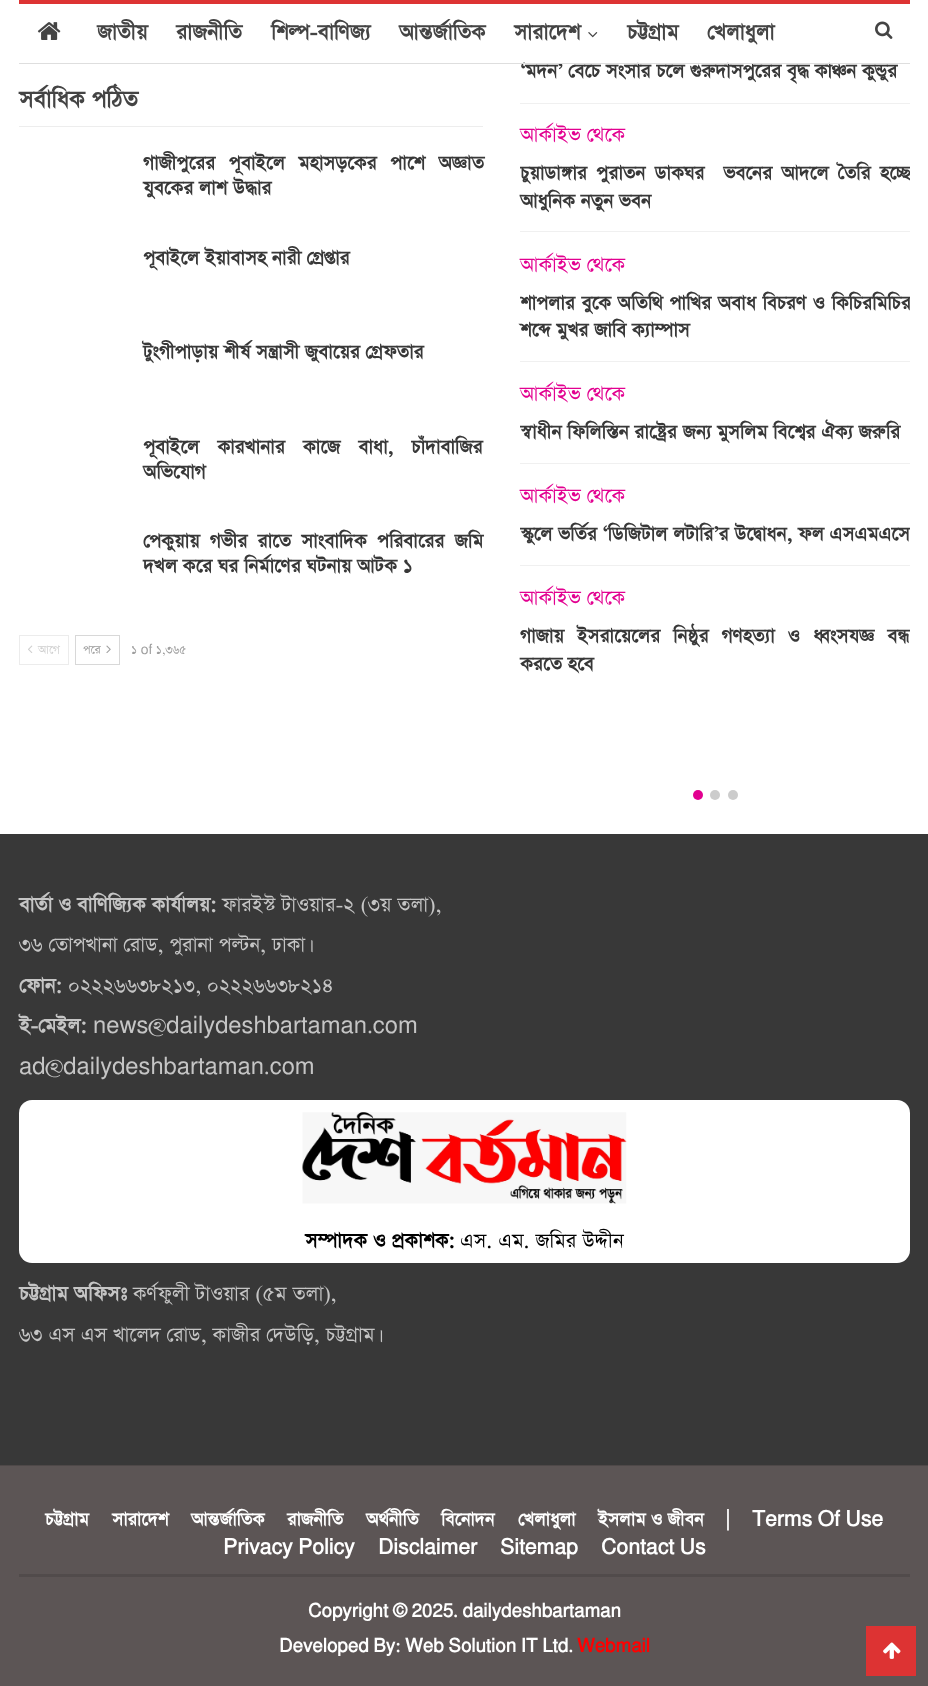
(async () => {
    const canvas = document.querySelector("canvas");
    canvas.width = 928;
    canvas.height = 1686;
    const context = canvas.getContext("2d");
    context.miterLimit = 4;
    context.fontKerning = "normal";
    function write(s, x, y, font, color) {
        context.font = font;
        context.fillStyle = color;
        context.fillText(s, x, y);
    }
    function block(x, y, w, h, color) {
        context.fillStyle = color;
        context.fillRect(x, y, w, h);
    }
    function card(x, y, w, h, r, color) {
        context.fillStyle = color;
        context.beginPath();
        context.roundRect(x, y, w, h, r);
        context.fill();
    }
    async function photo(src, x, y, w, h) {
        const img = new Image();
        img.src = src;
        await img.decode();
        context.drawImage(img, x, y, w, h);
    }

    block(0, 0, 928, 1686, "rgb(255, 255, 255)");
    block(19, 0, 891, 4, "rgb(221, 51, 51)");
    write("‘মদন’ বেচে সংসার চলে গুরুদাসপুরের বৃদ্ধ কাঞ্চন কুন্ডুর", 520, 78, "bold 22.5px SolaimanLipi", "rgb(56, 56, 56)");
    block(19, 63, 891, 1, "rgb(222, 222, 222)");
    await photo("media/1.png", 37, 22, 24, 18);
    write("জাতীয়", 97, 40, "bold 25px SolaimanLipi", "rgb(68, 68, 68)");
    write("রাজনীতি", 176, 40, "bold 25px SolaimanLipi", "rgb(68, 68, 68)");
    write("শিল্প-বাণিজ্য", 271, 40, "bold 25px SolaimanLipi", "rgb(68, 68, 68)");
    write("আন্তর্জাতিক", 399, 40, "bold 25px SolaimanLipi", "rgb(68, 68, 68)");
    write("সারাদেশ", 514, 40, "bold 25px SolaimanLipi", "rgb(68, 68, 68)");
    await photo("media/2.png", 588, 32, 10, 6);
    write("চট্টগ্রাম", 627, 40, "bold 25px SolaimanLipi", "rgb(68, 68, 68)");
    write("খেলাধুলা", 707, 40, "bold 25px SolaimanLipi", "rgb(68, 68, 68)");
    await photo("media/3.png", 875, 21, 18, 18);
    write("সর্বাধিক পঠিত", 19, 108, "bold 27.5px SolaimanLipi", "rgb(68, 68, 68)");
    block(19, 126, 464, 1, "rgb(237, 237, 237)");
    context.wordSpacing = "8px";
    write("গাজীপুরের পূবাইলে মহাসড়কের পাশে অজ্ঞাত", 143, 170, "bold 22.5px SolaimanLipi", "rgb(56, 56, 56)");
    context.wordSpacing = "0px";
    write("যুবকের লাশ উদ্ধার", 143, 195, "bold 22.5px SolaimanLipi", "rgb(56, 56, 56)");
    write("পূবাইলে ইয়াবাসহ নারী গ্রেপ্তার", 143, 265, "bold 22.5px SolaimanLipi", "rgb(56, 56, 56)");
    write("টুংগীপাড়ায় শীর্ষ সন্ত্রাসী জুবায়ের গ্রেফতার", 143, 359, "bold 22.5px SolaimanLipi", "rgb(56, 56, 56)");
    context.wordSpacing = "12.5px";
    write("পূবাইলে কারখানার কাজে বাধা, চাঁদাবাজির", 143, 454, "bold 22.5px SolaimanLipi", "rgb(56, 56, 56)");
    context.wordSpacing = "0px";
    write("অভিযোগ", 143, 479, "bold 22.5px SolaimanLipi", "rgb(56, 56, 56)");
    context.wordSpacing = "4.5px";
    write("পেকুয়ায় গভীর রাতে সাংবাদিক পরিবারের জমি", 143, 548, "bold 22.5px SolaimanLipi", "rgb(56, 56, 56)");
    context.wordSpacing = "0px";
    write("দখল করে ঘর নির্মাণের ঘটনায় আটক ১", 143, 573, "bold 22.5px SolaimanLipi", "rgb(56, 56, 56)");
    context.strokeStyle = "rgb(236, 236, 236)";
    context.strokeRect(19.5, 635.5, 49, 29);
    await photo("media/4.png", 28, 645, 5, 8);
    write("আগে", 38, 654, "14px SolaimanLipi", "rgb(207, 207, 207)");
    context.strokeStyle = "rgb(216, 216, 216)";
    context.strokeRect(75.5, 635.5, 44, 29);
    write("পরে", 83, 654, "14px SolaimanLipi", "rgb(158, 158, 158)");
    await photo("media/5.png", 106, 645, 5, 8);
    write("১ of ১,৩৬৫", 131, 654, "14px SolaimanLipi", "rgb(158, 158, 158)");
    block(520, 103, 390, 1, "rgb(240, 240, 240)");
    block(520, 231, 390, 1, "rgb(240, 240, 240)");
    write("আর্কাইভ থেকে", 520, 142, "23.75px SolaimanLipi", "rgb(226, 0, 144)");
    context.save();
    context.beginPath();
    context.rect(520, 0, 390, 695);
    context.clip();
    context.wordSpacing = "3.75px";
    write("চুয়াডাঙ্গার পুরাতন ডাকঘর  ভবনের আদলে তৈরি হচ্ছে", 520, 180, "bold 22.5px SolaimanLipi", "rgb(56, 56, 56)");
    context.restore();
    write("আধুনিক নতুন ভবন", 520, 208, "bold 22.5px SolaimanLipi", "rgb(56, 56, 56)");
    block(520, 361, 390, 1, "rgb(240, 240, 240)");
    write("আর্কাইভ থেকে", 520, 272, "23.75px SolaimanLipi", "rgb(226, 0, 144)");
    context.save();
    context.beginPath();
    context.rect(520, 0, 390, 695);
    context.clip();
    context.wordSpacing = "1px";
    write("শাপলার বুকে অতিথি পাখির অবাধ বিচরণ ও কিচিরমিচির", 520, 310, "bold 22.5px SolaimanLipi", "rgb(56, 56, 56)");
    context.restore();
    write("শব্দে মুখর জাবি ক্যাম্পাস", 520, 337, "bold 22.5px SolaimanLipi", "rgb(56, 56, 56)");
    block(520, 463, 390, 1, "rgb(240, 240, 240)");
    write("আর্কাইভ থেকে", 520, 401, "23.75px SolaimanLipi", "rgb(226, 0, 144)");
    context.save();
    context.beginPath();
    context.rect(520, 0, 390, 695);
    context.clip();
    write("স্বাধীন ফিলিস্তিন রাষ্ট্রের জন্য মুসলিম বিশ্বের ঐক্য জরুরি", 520, 439, "bold 22.5px SolaimanLipi", "rgb(56, 56, 56)");
    context.restore();
    block(520, 565, 390, 1, "rgb(240, 240, 240)");
    write("আর্কাইভ থেকে", 520, 503, "23.75px SolaimanLipi", "rgb(226, 0, 144)");
    context.save();
    context.beginPath();
    context.rect(520, 0, 390, 695);
    context.clip();
    write("স্কুলে ভর্তির ‘ডিজিটাল লটারি’র উদ্বোধন, ফল এসএমএসে", 520, 541, "bold 22.5px SolaimanLipi", "rgb(56, 56, 56)");
    context.restore();
    write("আর্কাইভ থেকে", 520, 605, "23.75px SolaimanLipi", "rgb(226, 0, 144)");
    context.save();
    context.beginPath();
    context.rect(520, 0, 390, 695);
    context.clip();
    context.wordSpacing = "7.5px";
    write("গাজায় ইসরায়েলের নিষ্ঠুর গণহত্যা ও ধ্বংসযজ্ঞ বন্ধ", 520, 643, "bold 22.5px SolaimanLipi", "rgb(56, 56, 56)");
    context.restore();
    write("করতে হবে", 520, 671, "bold 22.5px SolaimanLipi", "rgb(56, 56, 56)");
    context.fillStyle = "rgb(226, 0, 144)";
    context.beginPath();
    context.arc(698, 795, 5, 0, Math.PI * 2);
    context.fill();
    context.fillStyle = "rgb(204, 204, 204)";
    context.beginPath();
    context.arc(715, 795, 5, 0, Math.PI * 2);
    context.fill();
    context.beginPath();
    context.arc(733, 795, 5, 0, Math.PI * 2);
    context.fill();
    block(0, 834, 928, 631, "rgb(56, 56, 56)");
    write("বার্তা ও বাণিজ্যিক কার্যালয়:", 19, 912, "bold 23.75px SolaimanLipi", "rgb(197, 197, 197)");
    write("ফারইস্ট টাওয়ার-২ (৩য় তলা),", 222, 912, "23.75px SolaimanLipi", "rgb(197, 197, 197)");
    write("৩৬ তোপখানা রোড, পুরানা পল্টন, ঢাকা।", 19, 952, "23.75px SolaimanLipi", "rgb(197, 197, 197)");
    write("ফোন:", 19, 993, "bold 23.75px SolaimanLipi", "rgb(197, 197, 197)");
    write("০২২২৬৬৩৮২১৩, ০২২২৬৬৩৮২১৪", 68, 993, "23.75px SolaimanLipi", "rgb(197, 197, 197)");
    write("ই-মেইল:", 19, 1033, "bold 23.75px SolaimanLipi", "rgb(197, 197, 197)");
    write("news@dailydeshbartaman.com", 93, 1033, "23.75px SolaimanLipi", "rgb(197, 197, 197)");
    write("ad@dailydeshbartaman.com", 19, 1074, "23.75px SolaimanLipi", "rgb(197, 197, 197)");
    card(19, 1100, 891, 163, 13, "rgb(255, 255, 255)");
    await photo("media/6.png", 302, 1112, 325, 92);
    write("সম্পাদক ও প্রকাশক:", 305, 1248, "bold 23.75px SolaimanLipi", "rgb(0, 0, 0)");
    write("এস. এম. জমির উদ্দীন", 460, 1248, "23.75px SolaimanLipi", "rgb(0, 0, 0)");
    write("চট্টগ্রাম অফিসঃ", 19, 1301, "bold 23.75px SolaimanLipi", "rgb(197, 197, 197)");
    write("কর্ণফুলী টাওয়ার (৫ম তলা),", 133, 1301, "23.75px SolaimanLipi", "rgb(197, 197, 197)");
    write("৬৩ এস এস খালেদ রোড, কাজীর দেউড়ি, চট্টগ্রাম।", 19, 1342, "23.75px SolaimanLipi", "rgb(197, 197, 197)");
    block(0, 1466, 928, 220, "rgb(92, 85, 85)");
    block(0, 1465, 928, 1, "rgb(78, 72, 72)");
    block(19, 1574, 891, 3, "rgb(81, 75, 75)");
    write("চট্টগ্রাম", 45, 1526, "bold 21.25px SolaimanLipi", "rgb(255, 255, 255)");
    write("সারাদেশ", 112, 1526, "bold 21.25px SolaimanLipi", "rgb(255, 255, 255)");
    write("আন্তর্জাতিক", 191, 1526, "bold 21.25px SolaimanLipi", "rgb(255, 255, 255)");
    write("রাজনীতি", 287, 1526, "bold 21.25px SolaimanLipi", "rgb(255, 255, 255)");
    write("অর্থনীতি", 366, 1526, "bold 21.25px SolaimanLipi", "rgb(255, 255, 255)");
    write("বিনোদন", 441, 1526, "bold 21.25px SolaimanLipi", "rgb(255, 255, 255)");
    write("খেলাধুলা", 518, 1526, "bold 21.25px SolaimanLipi", "rgb(255, 255, 255)");
    write("ইসলাম ও জীবন", 598, 1526, "bold 21.25px SolaimanLipi", "rgb(255, 255, 255)");
    write("|", 726, 1526, "bold 21.25px SolaimanLipi", "rgb(255, 255, 255)");
    write("Terms Of Use", 752, 1526, "bold 21.25px SolaimanLipi", "rgb(255, 255, 255)");
    write("Privacy Policy", 223, 1554, "bold 21.25px SolaimanLipi", "rgb(255, 255, 255)");
    write("Disclaimer", 378, 1554, "bold 21.25px SolaimanLipi", "rgb(255, 255, 255)");
    write("Sitemap", 500, 1554, "bold 21.25px SolaimanLipi", "rgb(255, 255, 255)");
    write("Contact Us", 601, 1554, "bold 21.25px SolaimanLipi", "rgb(255, 255, 255)");
    write("Copyright © 2025. dailydeshbartaman", 308, 1617, "bold 18.75px SolaimanLipi", "rgb(255, 255, 255)");
    write("Developed By: Web Solution IT Ltd.", 279, 1652, "bold 18.75px SolaimanLipi", "rgb(255, 255, 255)");
    write("Webmail", 577, 1652, "bold 18.75px SolaimanLipi", "rgb(255, 0, 0)");
    block(866, 1626, 50, 50, "rgb(221, 51, 51)");
    await photo("media/7.png", 883, 1642, 18, 17);
})();
